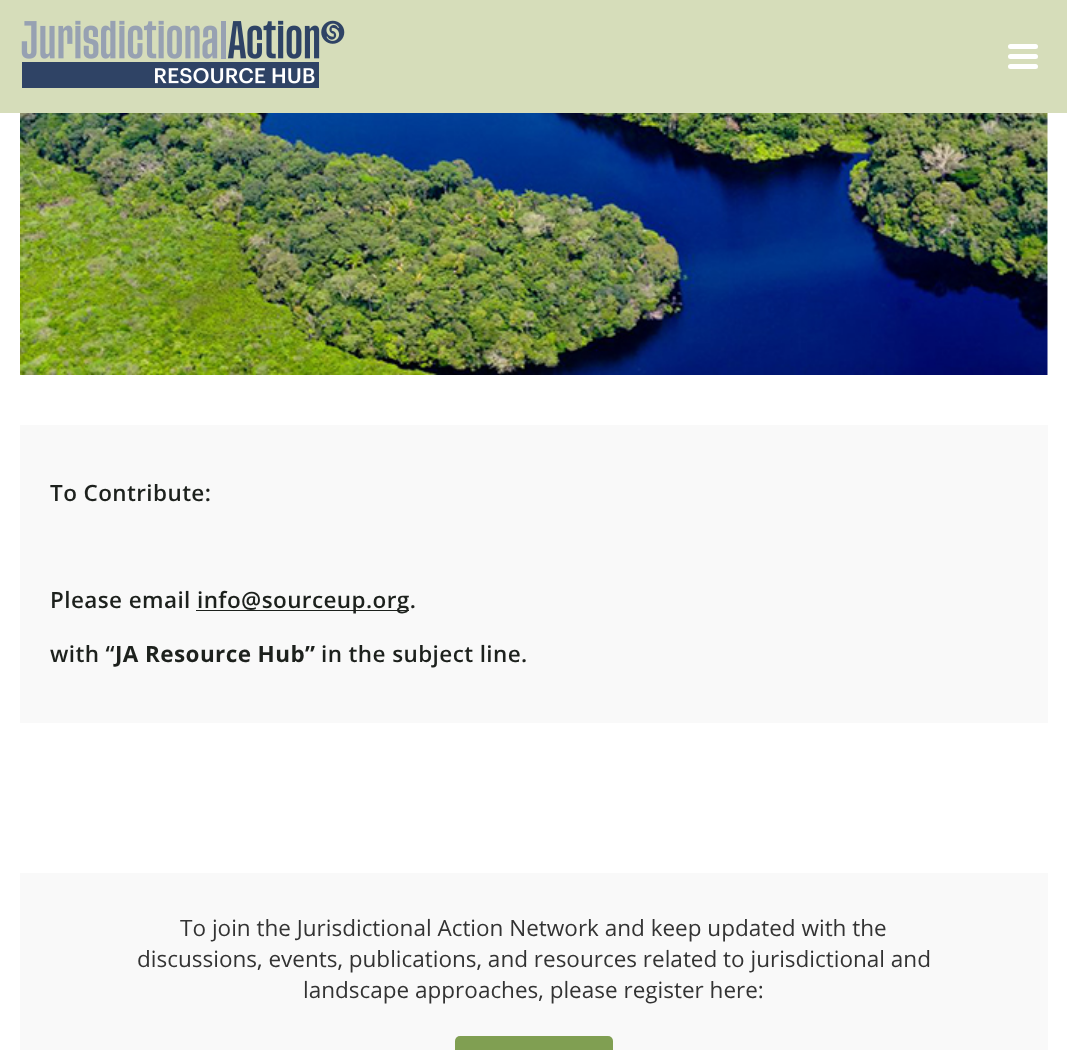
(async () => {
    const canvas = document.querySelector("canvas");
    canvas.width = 1067;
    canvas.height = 1050;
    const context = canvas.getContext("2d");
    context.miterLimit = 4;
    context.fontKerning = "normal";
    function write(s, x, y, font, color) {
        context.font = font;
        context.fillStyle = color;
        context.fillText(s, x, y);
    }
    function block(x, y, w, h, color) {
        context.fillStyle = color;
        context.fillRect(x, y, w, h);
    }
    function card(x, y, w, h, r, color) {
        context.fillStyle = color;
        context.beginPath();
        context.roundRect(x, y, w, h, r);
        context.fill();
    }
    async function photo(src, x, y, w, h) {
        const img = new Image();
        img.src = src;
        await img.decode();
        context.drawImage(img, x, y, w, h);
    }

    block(0, 0, 1067, 1050, "rgb(255, 255, 255)");
    block(0, 0, 1067, 113, "rgb(214, 221, 186)");
    await photo("media/1.png", 21, 20, 324, 68);
    card(1008, 44, 30, 5, 2.5, "rgb(255, 255, 255)");
    card(1008, 54, 30, 5, 2.5, "rgb(255, 255, 255)");
    card(1008, 64, 30, 5, 2.5, "rgb(255, 255, 255)");
    await photo("media/2.png", 20, 113, 1028, 262);
    block(20, 425, 1028, 298, "rgb(249, 249, 249)");
    context.letterSpacing = "0.4px";
    write("To Contribute:", 50, 501, "600 22.5px Open Sans", "rgb(29, 33, 29)");
    write("Please email", 50, 608, "600 22.5px Open Sans", "rgb(29, 33, 29)");
    block(196, 610, 213, 1, "rgb(29, 33, 29)");
    write("info@sourceup.org.", 197, 608, "600 22.5px Open Sans", "rgb(29, 33, 29)");
    write("with “", 50, 662, "600 22.5px Open Sans", "rgb(29, 33, 29)");
    write("JA Resource Hub”", 115, 662, "bold 22.5px Open Sans", "rgb(29, 33, 29)");
    write("in the subject line.", 321, 662, "600 22.5px Open Sans", "rgb(29, 33, 29)");
    block(20, 873, 1028, 177, "rgb(249, 249, 249)");
    context.letterSpacing = "0px";
    write("To join the Jurisdictional Action Network and keep updated with the", 180, 936, "22.5px Open Sans", "rgb(51, 51, 51)");
    write("discussions, events, publications, and resources related to jurisdictional and", 137, 967, "22.5px Open Sans", "rgb(51, 51, 51)");
    write("landscape approaches, please register here:", 303, 998, "22.5px Open Sans", "rgb(51, 51, 51)");
    card(455, 1036, 158, 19, 5, "rgb(128, 159, 82)");
})();
